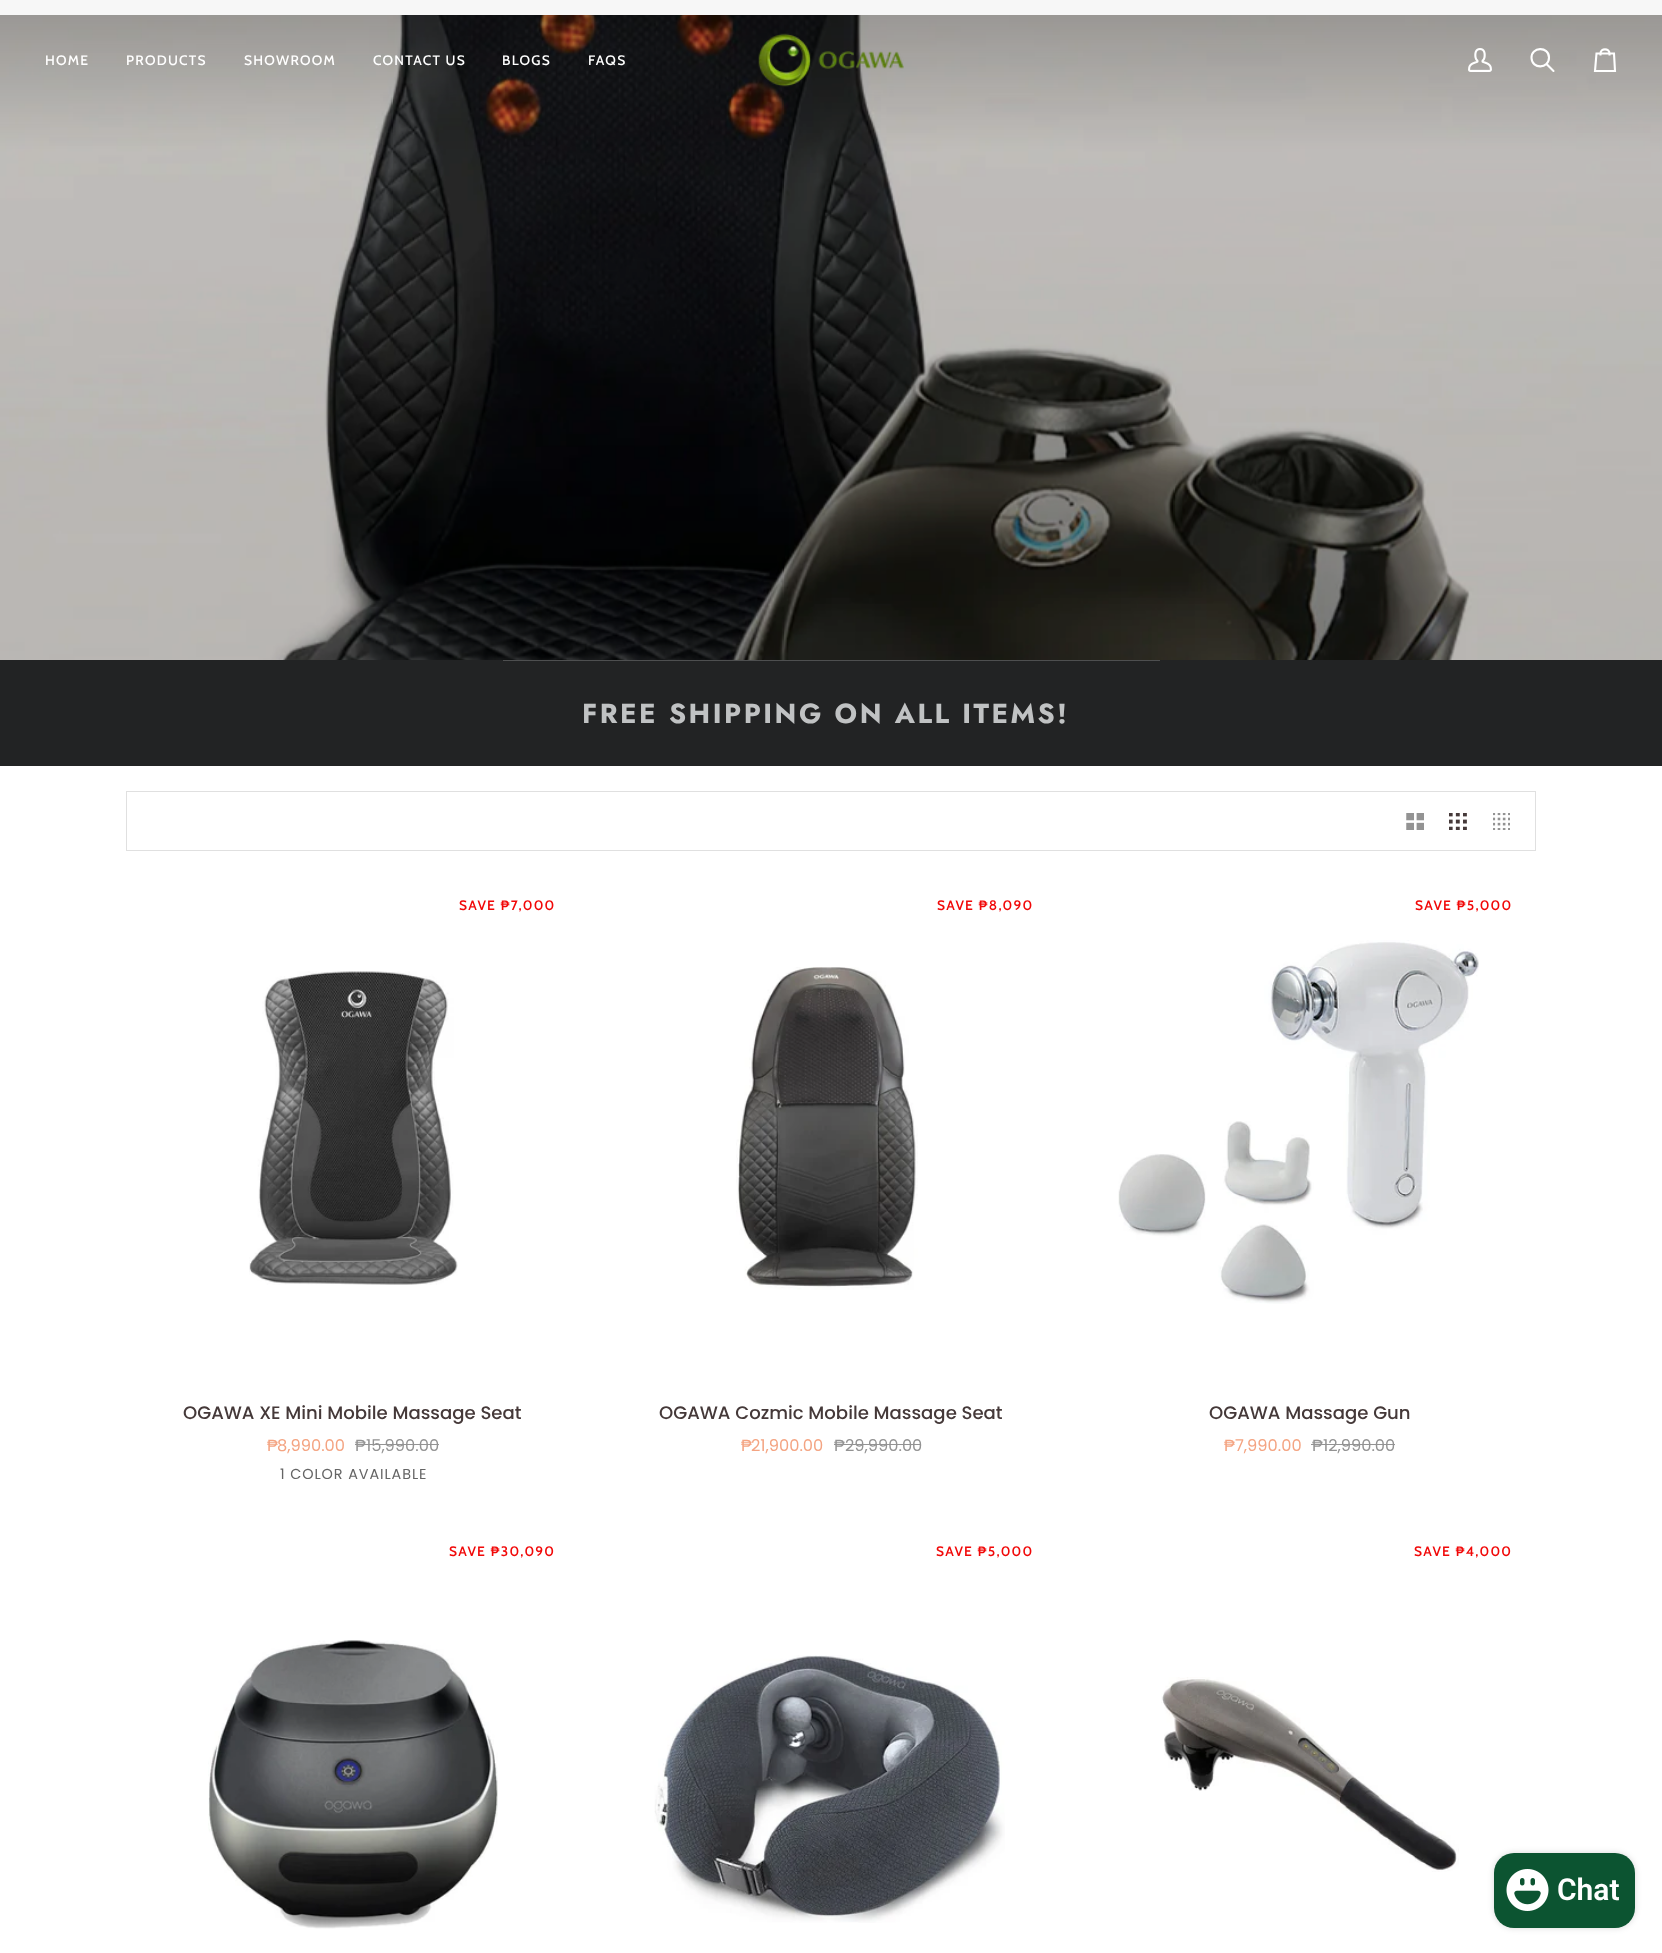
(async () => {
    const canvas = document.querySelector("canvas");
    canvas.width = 1662;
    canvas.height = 1953;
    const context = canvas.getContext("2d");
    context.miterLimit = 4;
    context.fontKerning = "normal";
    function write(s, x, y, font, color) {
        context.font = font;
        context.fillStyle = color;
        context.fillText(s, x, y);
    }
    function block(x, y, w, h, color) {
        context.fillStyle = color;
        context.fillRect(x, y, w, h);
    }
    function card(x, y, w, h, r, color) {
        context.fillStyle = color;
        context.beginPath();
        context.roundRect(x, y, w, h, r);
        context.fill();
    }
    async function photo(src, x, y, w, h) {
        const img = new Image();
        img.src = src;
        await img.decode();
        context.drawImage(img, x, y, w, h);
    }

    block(0, 0, 1662, 1953, "rgb(255, 255, 255)");
    block(0, 0, 1662, 15, "rgb(247, 247, 247)");
    await photo("media/3.png", 0, 15, 1662, 645);
    context.letterSpacing = "1.25px";
    write("HOME", 45, 65, "500 13.75px Cabin", "rgb(255, 255, 255)");
    write("PRODUCTS", 126, 65, "500 13.75px Cabin", "rgb(255, 255, 255)");
    write("SHOWROOM", 244, 65, "500 13.75px Cabin", "rgb(255, 255, 255)");
    write("CONTACT US", 373, 65, "500 13.75px Cabin", "rgb(255, 255, 255)");
    write("BLOGS", 502, 65, "500 13.75px Cabin", "rgb(255, 255, 255)");
    write("FAQS", 588, 65, "500 13.75px Cabin", "rgb(255, 255, 255)");
    await photo("media/1.png", 758, 33, 146, 54);
    await photo("media/2.png", 1468, 48, 24, 24);
    context.beginPath();
    context.moveTo(1549, 57.5);
    context.bezierCurveTo(1549, 69, 1532, 69.5, 1531.5, 58);
    context.bezierCurveTo(1531, 46.5, 1549, 46, 1549, 57.5);
    context.closePath();
    context.moveTo(1553.5, 71);
    context.lineTo(1546.5, 64);
    context.closePath();
    context.strokeStyle = "rgb(255, 255, 255)";
    context.lineWidth = 2.1;
    context.lineCap = "round";
    context.lineJoin = "round";
    context.stroke();
    context.beginPath();
    context.moveTo(1609.5, 55.5);
    context.lineTo(1609.5, 53.5);
    context.lineTo(1614, 53.5);
    context.lineTo(1615, 71);
    context.lineTo(1595, 71);
    context.lineTo(1596.5, 53.5);
    context.lineTo(1600.5, 53.5);
    context.bezierCurveTo(1600.5, 48, 1609.5, 48, 1609.5, 53.5);
    context.lineTo(1600.5, 53.5);
    context.lineTo(1600.5, 55.5);
    context.lineCap = "butt";
    context.lineJoin = "miter";
    context.stroke();
    block(0, 660, 1662, 106, "rgb(34, 35, 36)");
    block(503, 660, 657, 1, "rgb(78, 79, 80)");
    context.letterSpacing = "2.5px";
    write("FREE SHIPPING ON ALL ITEMS!", 582, 723, "bold 27.5px Jost", "rgb(192, 194, 195)");
    context.strokeStyle = "rgb(224, 224, 224)";
    context.lineWidth = 1;
    context.strokeRect(126.5, 791.5, 1409, 59);
    await photo("media/4.png", 1406, 813, 18, 17);
    await photo("media/5.png", 1449, 813, 18, 17);
    await photo("media/6.png", 1493, 813, 17, 17);
    context.letterSpacing = "1.25px";
    write("SAVE ₱7,000", 459, 910, "600 13.75px Cabin", "rgb(241, 8, 8)");
    await photo("media/7.png", 249, 971, 209, 314);
    context.letterSpacing = "0px";
    write("OGAWA XE Mini Mobile Massage Seat", 183, 1419, "500 18.1px Poppins", "rgb(69, 57, 57)");
    write("₱", 267, 1451, "16.25px Liberation Sans", "rgb(244, 164, 130)");
    write("8,990.00", 277, 1451, "16.25px Poppins", "rgb(244, 164, 130)");
    write("₱", 355, 1451, "16.25px Liberation Sans", "rgb(147, 147, 147)");
    block(355, 1444, 84, 1, "rgb(147, 147, 147)");
    write("15,990.00", 366, 1451, "16.25px Poppins", "rgb(147, 147, 147)");
    context.letterSpacing = "0.9px";
    write("1 COLOR AVAILABLE", 280, 1479, "14.4px Poppins", "rgb(101, 101, 101)");
    context.letterSpacing = "1.25px";
    write("SAVE ₱8,090", 937, 910, "600 13.75px Cabin", "rgb(241, 8, 8)");
    await photo("media/8.png", 736, 967, 182, 323);
    context.letterSpacing = "0px";
    write("OGAWA Cozmic Mobile Massage Seat", 659, 1419, "500 18.1px Poppins", "rgb(69, 57, 57)");
    write("₱", 741, 1451, "16.25px Liberation Sans", "rgb(244, 164, 130)");
    write("21,900.00", 751, 1451, "16.25px Poppins", "rgb(244, 164, 130)");
    write("₱", 834, 1451, "16.25px Liberation Sans", "rgb(147, 147, 147)");
    block(834, 1444, 87, 1, "rgb(147, 147, 147)");
    write("29,990.00", 845, 1451, "16.25px Poppins", "rgb(147, 147, 147)");
    context.letterSpacing = "1.25px";
    write("SAVE ₱5,000", 1415, 910, "600 13.75px Cabin", "rgb(241, 8, 8)");
    await photo("media/9.png", 1118, 940, 361, 364);
    context.letterSpacing = "0px";
    write("OGAWA Massage Gun", 1209, 1419, "500 18.1px Poppins", "rgb(69, 57, 57)");
    write("₱", 1224, 1451, "16.25px Liberation Sans", "rgb(244, 164, 130)");
    write("7,990.00", 1235, 1451, "16.25px Poppins", "rgb(244, 164, 130)");
    write("₱", 1312, 1451, "16.25px Liberation Sans", "rgb(147, 147, 147)");
    block(1311, 1444, 84, 1, "rgb(147, 147, 147)");
    write("12,990.00", 1323, 1451, "16.25px Poppins", "rgb(147, 147, 147)");
    context.letterSpacing = "1.25px";
    write("SAVE ₱30,090", 449, 1556, "600 13.75px Cabin", "rgb(241, 8, 8)");
    await photo("media/10.png", 208, 1640, 290, 289);
    write("SAVE ₱5,000", 936, 1556, "600 13.75px Cabin", "rgb(241, 8, 8)");
    await photo("media/11.png", 654, 1655, 351, 268);
    write("SAVE ₱4,000", 1414, 1556, "600 13.75px Cabin", "rgb(241, 8, 8)");
    await photo("media/12.png", 1161, 1677, 298, 195);
    context.fillStyle = "rgba(0, 0, 0, 0.15)";
    context.filter = "blur(3px)";
    context.beginPath();
    context.roundRect(1494, 1853, 141, 75, 20);
    context.fill();
    context.filter = "none";
    card(1494, 1853, 141, 75, 20, "rgb(12, 84, 49)");
    await photo("media/13.png", 1506, 1869, 43, 42);
    context.letterSpacing = "0px";
    write("Chat", 1557, 1900, "600 30px Roboto", "rgb(255, 255, 255)");
})();
